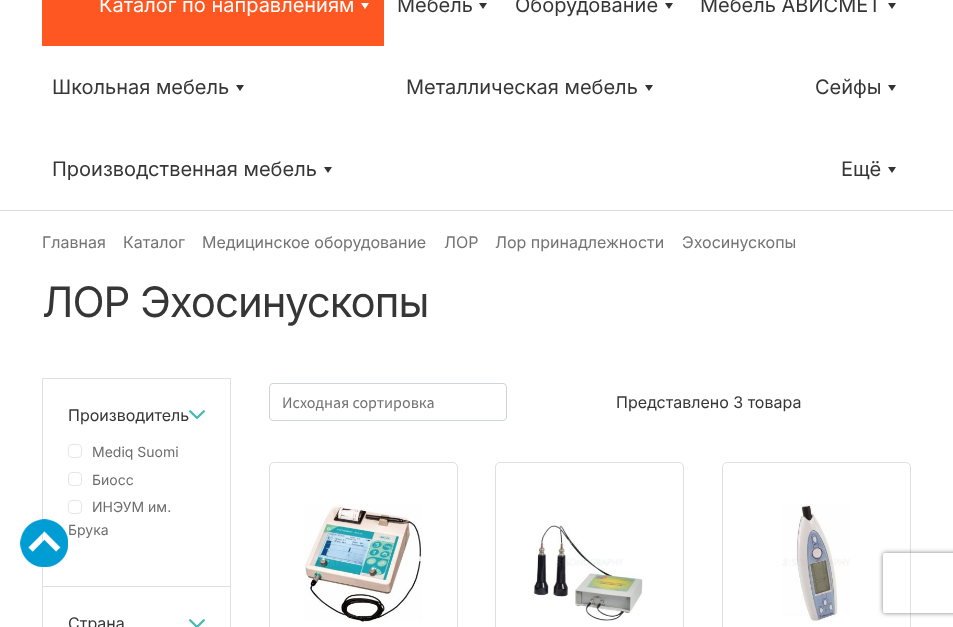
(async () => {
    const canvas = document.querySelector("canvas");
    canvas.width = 953;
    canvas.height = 627;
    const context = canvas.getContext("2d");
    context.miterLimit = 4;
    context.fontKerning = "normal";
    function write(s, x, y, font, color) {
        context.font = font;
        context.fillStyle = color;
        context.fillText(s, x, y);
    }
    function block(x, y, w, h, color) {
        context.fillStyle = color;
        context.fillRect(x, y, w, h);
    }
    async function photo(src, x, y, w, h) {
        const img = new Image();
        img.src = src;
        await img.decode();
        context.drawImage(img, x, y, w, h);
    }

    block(0, 0, 953, 627, "rgb(255, 255, 255)");
    block(0, 210, 953, 1, "rgb(217, 217, 217)");
    block(42, 0, 342, 46, "rgb(255, 87, 34)");
    write("Каталог по направлениям", 99, 12, "20px Inter", "rgb(255, 255, 255)");
    context.beginPath();
    context.moveTo(369, 3);
    context.lineTo(365, 9);
    context.lineTo(361, 3);
    context.closePath();
    context.fill();
    write("Мебель", 397, 12, "20px Inter", "rgb(55, 54, 54)");
    context.fillStyle = "rgb(51, 51, 51)";
    context.beginPath();
    context.moveTo(487, 3);
    context.lineTo(483, 9);
    context.lineTo(479, 3);
    context.closePath();
    context.fill();
    write("Оборудование", 515, 12, "20px Inter", "rgb(55, 54, 54)");
    context.fillStyle = "rgb(51, 51, 51)";
    context.beginPath();
    context.moveTo(673, 3);
    context.lineTo(669, 9);
    context.lineTo(665, 3);
    context.closePath();
    context.fill();
    write("Мебель АВИСМЕТ", 700, 12, "20px Inter", "rgb(55, 54, 54)");
    context.fillStyle = "rgb(51, 51, 51)";
    context.beginPath();
    context.moveTo(896, 3);
    context.lineTo(892, 9);
    context.lineTo(888, 3);
    context.closePath();
    context.fill();
    write("Школьная мебель", 52, 94, "20px Inter", "rgb(55, 54, 54)");
    context.fillStyle = "rgb(51, 51, 51)";
    context.beginPath();
    context.moveTo(244, 85);
    context.lineTo(240, 91);
    context.lineTo(236, 85);
    context.closePath();
    context.fill();
    write("Металлическая мебель", 406, 94, "20px Inter", "rgb(55, 54, 54)");
    context.fillStyle = "rgb(51, 51, 51)";
    context.beginPath();
    context.moveTo(653, 85);
    context.lineTo(649, 91);
    context.lineTo(645, 85);
    context.closePath();
    context.fill();
    write("Сейфы", 815, 94, "20px Inter", "rgb(55, 54, 54)");
    context.fillStyle = "rgb(51, 51, 51)";
    context.beginPath();
    context.moveTo(896, 85);
    context.lineTo(892, 91);
    context.lineTo(888, 85);
    context.closePath();
    context.fill();
    write("Производственная мебель", 52, 176, "20px Inter", "rgb(55, 54, 54)");
    context.fillStyle = "rgb(51, 51, 51)";
    context.beginPath();
    context.moveTo(332, 167);
    context.lineTo(328, 173);
    context.lineTo(324, 167);
    context.closePath();
    context.fill();
    write("Ещё", 841, 176, "20px Inter", "rgb(55, 54, 54)");
    context.fillStyle = "rgb(51, 51, 51)";
    context.beginPath();
    context.moveTo(896, 167);
    context.lineTo(892, 173);
    context.lineTo(888, 167);
    context.closePath();
    context.fill();
    write("Главная", 42, 248, "16px Inter", "rgb(115, 115, 115)");
    write("Каталог", 123, 248, "16px Inter", "rgb(115, 115, 115)");
    write("Медицинское оборудование", 202, 248, "16px Inter", "rgb(115, 115, 115)");
    write("ЛОР", 444, 248, "16px Inter", "rgb(115, 115, 115)");
    write("Лор принадлежности", 495, 248, "16px Inter", "rgb(115, 115, 115)");
    write("Эхосинускопы", 682, 248, "16px Inter", "rgb(115, 115, 115)");
    context.letterSpacing = "-1px";
    write("ЛОР Эхосинускопы", 42, 317, "42px Inter", "rgb(55, 54, 54)");
    context.beginPath();
    context.roundRect(269.5, 383.5, 237, 37, 3.5);
    context.strokeStyle = "rgb(206, 212, 218)";
    context.stroke();
    context.letterSpacing = "0px";
    write("Исходная сортировка", 282, 408, "16px Source Sans Pro", "rgb(115, 115, 115)");
    write("Представлено 3 товара", 616, 408, "16px Inter", "rgb(55, 54, 54)");
    context.beginPath();
    context.roundRect(269.5, 462.5, 188, 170, 4.5);
    context.strokeStyle = "rgb(224, 224, 224)";
    context.stroke();
    await photo("media/1.png", 304, 504, 119, 118);
    context.beginPath();
    context.roundRect(495.5, 462.5, 188, 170, 4.5);
    context.stroke();
    await photo("media/2.png", 532, 525, 111, 96);
    context.beginPath();
    context.roundRect(722.5, 462.5, 188, 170, 4.5);
    context.stroke();
    await photo("media/3.png", 782, 504, 68, 118);
    block(42, 378, 189, 1, "rgb(224, 224, 224)");
    block(230, 378, 1, 249, "rgb(224, 224, 224)");
    block(42, 378, 1, 249, "rgb(224, 224, 224)");
    block(43, 586, 187, 1, "rgb(224, 224, 224)");
    write("Производитель", 68, 421, "16px Inter", "rgb(55, 54, 54)");
    await photo("media/4.png", 189, 410, 16, 9);
    context.beginPath();
    context.roundRect(68.5, 444.5, 13, 13, 3.5);
    context.strokeStyle = "rgb(230, 230, 230)";
    context.stroke();
    write("Mediq Suomi", 92, 457, "14px Inter", "rgb(109, 109, 109)");
    context.beginPath();
    context.roundRect(68.5, 472.5, 13, 13, 3.5);
    context.stroke();
    write("Биосс", 92, 485, "14px Inter", "rgb(109, 109, 109)");
    context.beginPath();
    context.roundRect(68.5, 500.5, 13, 13, 3.5);
    context.stroke();
    write("ИНЭУМ им.", 92, 512, "14px Inter", "rgb(109, 109, 109)");
    write("Брука", 68, 535, "14px Inter", "rgb(109, 109, 109)");
    write("Страна", 68, 629, "16px Inter", "rgb(55, 54, 54)");
    await photo("media/5.png", 189, 619, 16, 8);
    await photo("media/6.png", 20, 519, 48, 48);
    context.save();
    context.beginPath();
    context.moveTo(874, 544);
    context.lineTo(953, 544);
    context.lineTo(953, 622);
    context.lineTo(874, 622);
    context.closePath();
    context.moveTo(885, 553);
    context.lineTo(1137, 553);
    context.bezierCurveTo(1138, 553, 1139, 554, 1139, 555);
    context.lineTo(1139, 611);
    context.bezierCurveTo(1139, 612, 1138, 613, 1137, 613);
    context.lineTo(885, 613);
    context.bezierCurveTo(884, 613, 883, 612, 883, 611);
    context.lineTo(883, 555);
    context.bezierCurveTo(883, 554, 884, 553, 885, 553);
    context.closePath();
    context.clip("evenodd");
    context.fillStyle = "rgb(128, 128, 128)";
    context.filter = "blur(2.5px)";
    context.beginPath();
    context.roundRect(883, 553, 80, 60, 2);
    context.fill();
    context.filter = "none";
    context.restore();
})();
